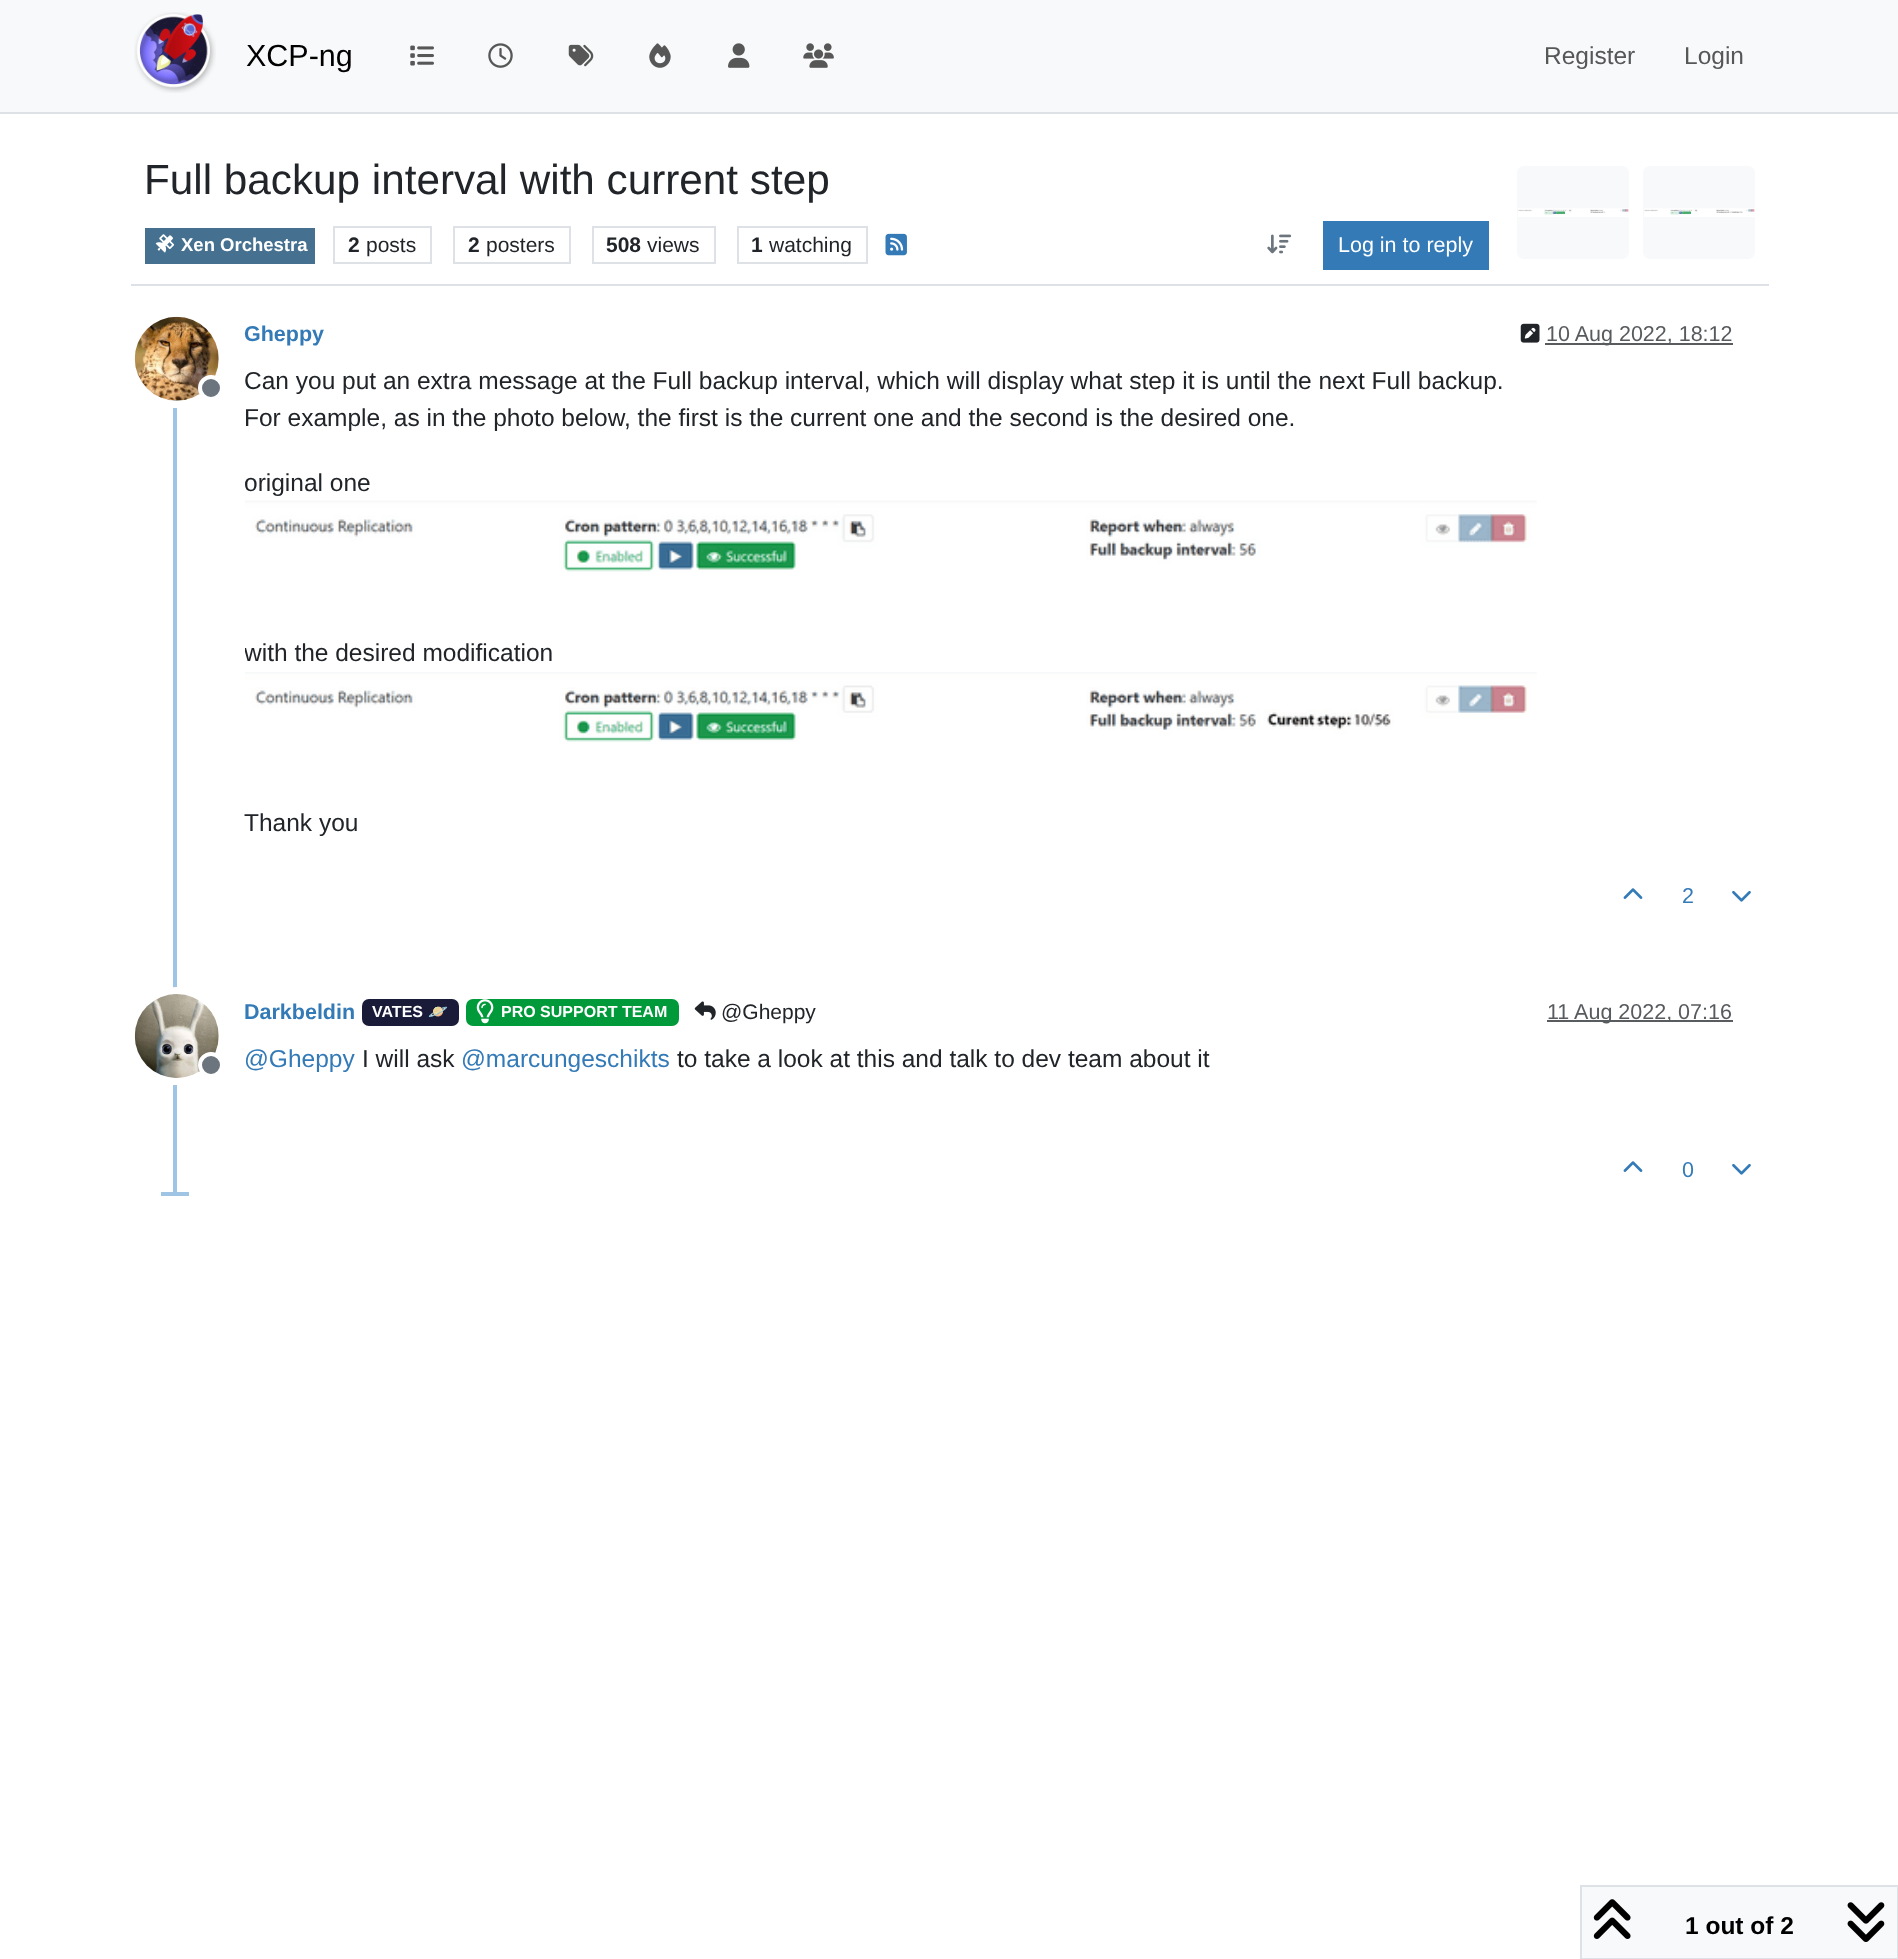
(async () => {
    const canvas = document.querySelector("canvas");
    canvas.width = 1898;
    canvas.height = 1959;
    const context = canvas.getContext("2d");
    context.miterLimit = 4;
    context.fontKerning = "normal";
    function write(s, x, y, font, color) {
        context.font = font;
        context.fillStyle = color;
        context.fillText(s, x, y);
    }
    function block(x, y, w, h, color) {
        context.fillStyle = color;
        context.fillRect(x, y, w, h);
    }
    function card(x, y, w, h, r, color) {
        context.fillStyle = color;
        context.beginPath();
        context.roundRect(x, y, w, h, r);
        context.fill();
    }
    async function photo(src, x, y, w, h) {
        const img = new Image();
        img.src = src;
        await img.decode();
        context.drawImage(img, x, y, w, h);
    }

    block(0, 0, 1898, 1959, "rgb(255, 255, 255)");
    block(0, 0, 1898, 112, "rgb(248, 249, 250)");
    block(0, 112, 1898, 2, "rgb(222, 226, 230)");
    await photo("media/1.png", 134, 12, 82, 81);
    write("XCP-ng", 246, 66, "30.5px Liberation Sans", "rgb(0, 0, 0)");
    await photo("media/2.png", 410, 45, 24, 21);
    await photo("media/3.png", 488, 43, 25, 25);
    await photo("media/4.png", 568, 44, 26, 23);
    await photo("media/5.png", 649, 43, 22, 25);
    await photo("media/6.png", 728, 43, 22, 25);
    await photo("media/7.png", 803, 43, 31, 25);
    write("Register", 1544, 64, "24.5px Liberation Sans", "rgb(87, 87, 88)");
    write("Login", 1684, 64, "24.5px Liberation Sans", "rgb(87, 87, 88)");
    block(131, 284, 1638, 2, "rgb(222, 226, 230)");
    write("Full backup interval with current step", 144, 194, "42.25px Liberation Sans", "rgb(33, 37, 41)");
    block(145, 228, 170, 36, "rgb(69, 112, 143)");
    await photo("media/8.png", 155, 234, 20, 19);
    write("Xen Orchestra", 181, 251, "bold 18.5px Liberation Sans", "rgb(255, 255, 255)");
    context.strokeStyle = "rgb(222, 226, 230)";
    context.lineWidth = 2;
    context.strokeRect(334, 227, 97, 36);
    write("2", 348, 252, "bold 21px Liberation Sans", "rgb(33, 37, 41)");
    write("posts", 366, 252, "21px Liberation Sans", "rgb(33, 37, 41)");
    context.strokeRect(454, 227, 116, 36);
    write("2", 468, 252, "bold 21px Liberation Sans", "rgb(33, 37, 41)");
    write("posters", 486, 252, "21px Liberation Sans", "rgb(33, 37, 41)");
    context.strokeRect(593, 227, 122, 36);
    write("508", 606, 252, "bold 21px Liberation Sans", "rgb(33, 37, 41)");
    write("views", 647, 252, "21px Liberation Sans", "rgb(33, 37, 41)");
    context.strokeRect(738, 227, 129, 36);
    write("1", 751, 252, "bold 21px Liberation Sans", "rgb(33, 37, 41)");
    write("watching", 769, 252, "21px Liberation Sans", "rgb(33, 37, 41)");
    await photo("media/9.png", 885, 233, 22, 23);
    await photo("media/10.png", 1267, 234, 25, 20);
    block(1323, 221, 166, 49, "rgb(51, 122, 183)");
    write("Log in to reply", 1338, 252, "21.5px Liberation Sans", "rgb(255, 255, 255)");
    card(1517, 166, 112, 93, 7, "rgb(248, 249, 250)");
    await photo("media/11.png", 1518, 208, 111, 9);
    card(1643, 166, 112, 93, 7, "rgb(248, 249, 250)");
    await photo("media/12.png", 1644, 208, 111, 9);
    block(173, 313, 4, 882, "rgb(160, 196, 228)");
    context.beginPath();
    context.arc(177, 359, 45.5, 0, Math.PI * 2);
    context.strokeStyle = "rgb(255, 255, 255)";
    context.lineWidth = 7;
    context.stroke();
    await photo("media/13.png", 134, 316, 85, 85);
    context.fillStyle = "rgb(108, 117, 125)";
    context.beginPath();
    context.arc(211, 388, 11, 0, Math.PI * 2);
    context.fill();
    context.lineWidth = 4;
    context.stroke();
    write("Gheppy", 244, 341, "bold 21.5px Liberation Sans", "rgb(51, 122, 183)");
    await photo("media/14.png", 1520, 323, 20, 20);
    block(1545, 343, 188, 2, "rgb(89, 92, 95)");
    write("10 Aug 2022, 18:12", 1546, 341, "21.5px Liberation Sans", "rgb(88, 91, 94)");
    write("Can you put an extra message at the Full backup interval, which will display what step it is until the next Full backup.", 244, 389, "24.5px Liberation Sans", "rgb(33, 37, 41)");
    write("For example, as in the photo below, the first is the current one and the second is the desired one.", 244, 426, "24.5px Liberation Sans", "rgb(33, 37, 41)");
    write("original one", 244, 491, "24.5px Liberation Sans", "rgb(33, 37, 41)");
    await photo("media/15.png", 245, 500, 1292, 72);
    context.save();
    context.beginPath();
    context.rect(245, 362, 1524, 510);
    context.clip();
    write("with the desired modification", 244, 661, "24.5px Liberation Sans", "rgb(33, 37, 41)");
    context.restore();
    await photo("media/16.png", 245, 672, 1292, 70);
    write("Thank you", 244, 831, "24.5px Liberation Sans", "rgb(33, 37, 41)");
    await photo("media/17.png", 1623, 888, 20, 11);
    write("2", 1682, 903, "21.5px Liberation Sans", "rgb(51, 122, 183)");
    await photo("media/18.png", 1732, 891, 19, 11);
    context.beginPath();
    context.arc(177, 1036, 45.5, 0, Math.PI * 2);
    context.lineWidth = 7;
    context.stroke();
    await photo("media/19.png", 134, 994, 85, 84);
    context.fillStyle = "rgb(108, 117, 125)";
    context.beginPath();
    context.arc(211, 1065, 11, 0, Math.PI * 2);
    context.fill();
    context.lineWidth = 4;
    context.stroke();
    write("Darkbeldin", 244, 1019, "bold 21.5px Liberation Sans", "rgb(51, 122, 183)");
    card(362, 999, 97, 27, 7, "rgb(26, 27, 56)");
    write("VATES", 372, 1017, "bold 16px Liberation Sans", "rgb(255, 255, 255)");
    write("🪐", 428, 1017, "bold 16px Noto Color Emoji", "rgb(255, 255, 255)");
    card(466, 999, 213, 27, 7, "rgb(0, 154, 58)");
    await photo("media/20.png", 476, 999, 18, 25);
    write("PRO SUPPORT TEAM", 501, 1017, "bold 16px Liberation Sans", "rgb(255, 255, 255)");
    await photo("media/21.png", 694, 1001, 22, 19);
    write("@Gheppy", 721, 1019, "21px Liberation Sans", "rgb(33, 37, 41)");
    block(1547, 1020, 186, 2, "rgb(89, 92, 95)");
    write("11 Aug 2022, 07:16", 1547, 1019, "21.5px Liberation Sans", "rgb(88, 91, 94)");
    write("@Gheppy", 244, 1067, "24.5px Liberation Sans", "rgb(51, 122, 183)");
    write("I will ask", 362, 1067, "24.5px Liberation Sans", "rgb(33, 37, 41)");
    write("@marcungeschikts", 461, 1067, "24.5px Liberation Sans", "rgb(51, 122, 183)");
    write("to take a look at this and talk to dev team about it", 677, 1067, "24.5px Liberation Sans", "rgb(33, 37, 41)");
    await photo("media/17.png", 1623, 1161, 20, 11);
    write("0", 1682, 1177, "21.5px Liberation Sans", "rgb(51, 122, 183)");
    await photo("media/18.png", 1732, 1164, 19, 11);
    block(161, 1192, 28, 4, "rgb(160, 196, 228)");
    context.fillStyle = "rgb(248, 249, 250)";
    context.beginPath();
    context.rect(1581, 1886, 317, 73);
    context.fill();
    context.strokeStyle = "rgb(222, 226, 230)";
    context.lineWidth = 2;
    context.stroke();
    await photo("media/22.png", 1593, 1899, 38, 40);
    write("1 out of 2", 1685, 1934, "bold 24.5px Liberation Sans", "rgb(0, 0, 0)");
    await photo("media/23.png", 1847, 1902, 38, 40);
})();
